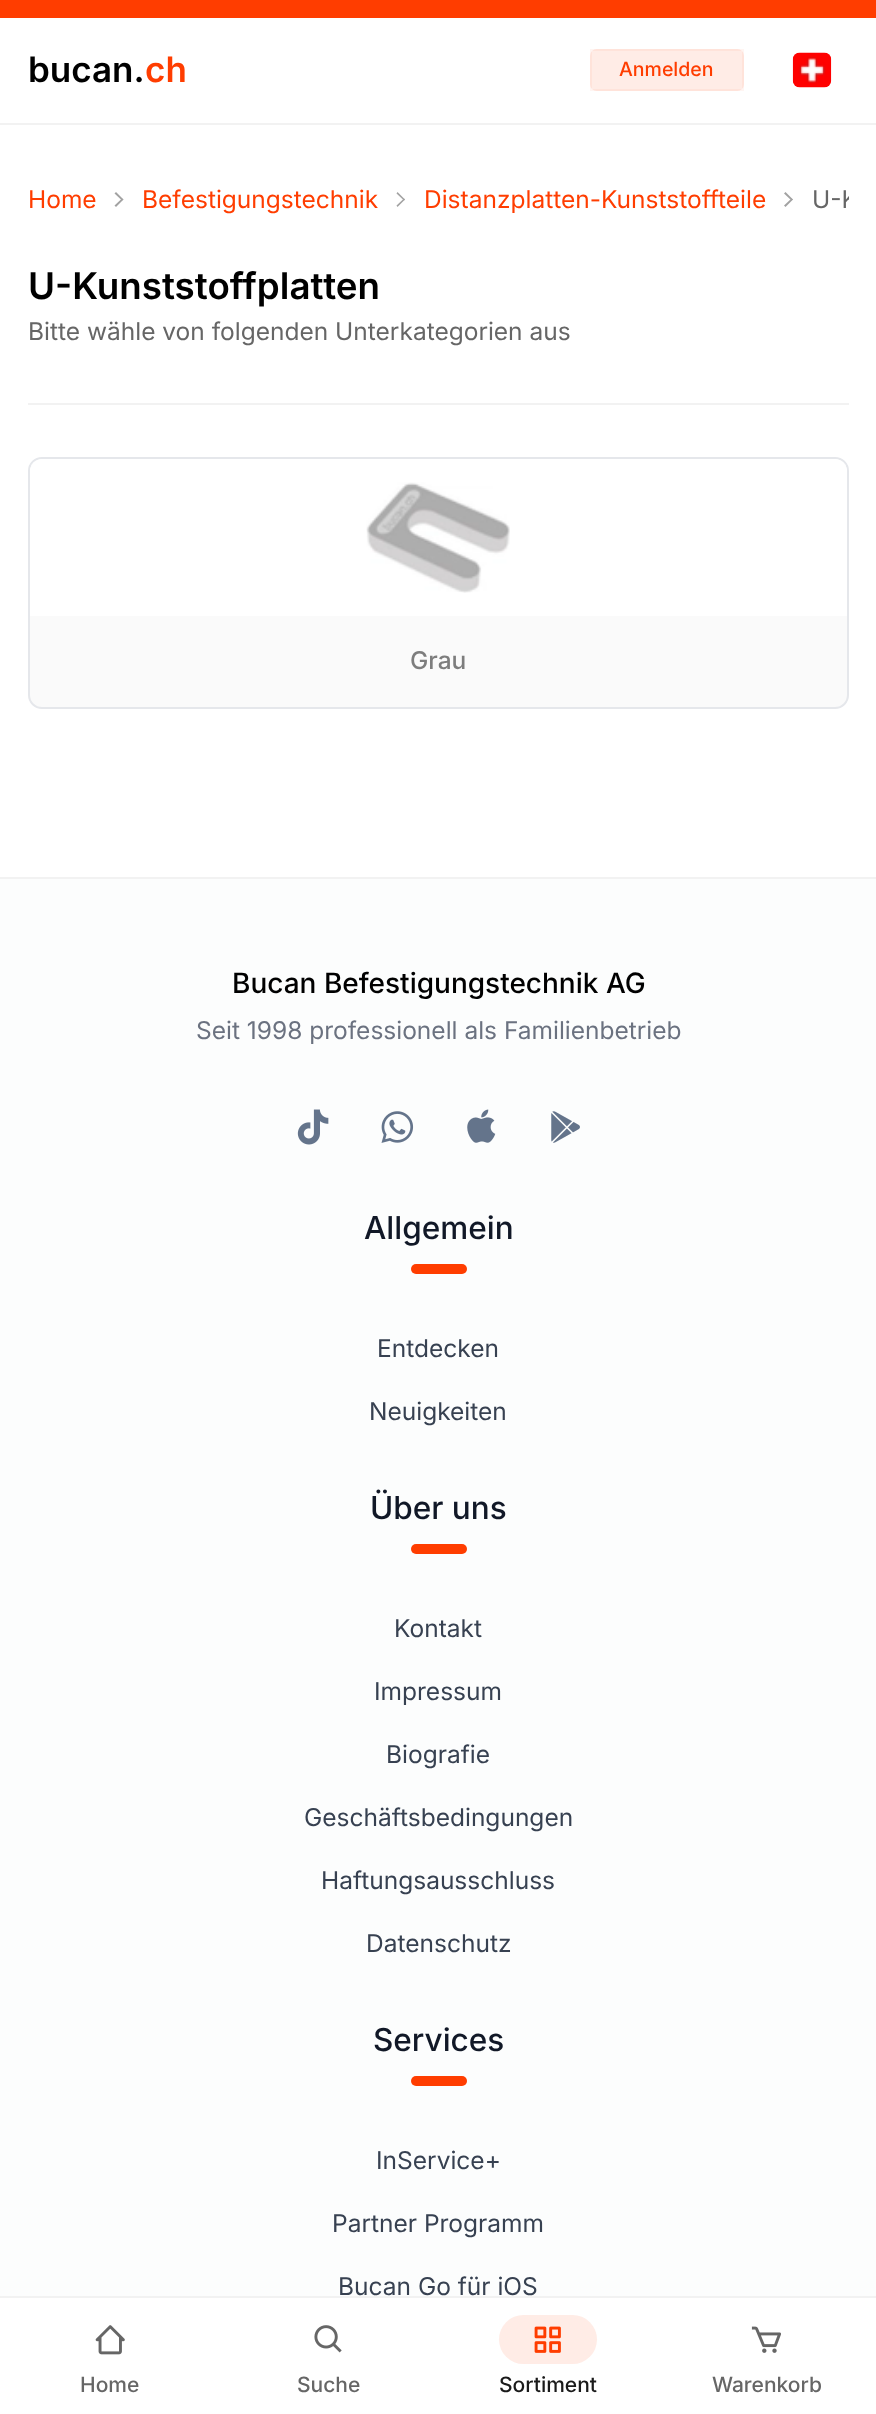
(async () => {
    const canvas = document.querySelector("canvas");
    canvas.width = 876;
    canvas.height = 2414;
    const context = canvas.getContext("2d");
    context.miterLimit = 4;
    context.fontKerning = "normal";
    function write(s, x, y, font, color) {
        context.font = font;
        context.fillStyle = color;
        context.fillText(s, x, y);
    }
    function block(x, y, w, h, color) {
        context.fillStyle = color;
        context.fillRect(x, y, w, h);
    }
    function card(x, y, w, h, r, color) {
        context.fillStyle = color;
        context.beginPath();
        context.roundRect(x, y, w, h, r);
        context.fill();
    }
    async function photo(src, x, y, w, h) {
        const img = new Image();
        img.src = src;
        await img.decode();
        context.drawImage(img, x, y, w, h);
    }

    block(0, 0, 876, 2414, "rgb(255, 255, 255)");
    block(0, 0, 876, 18, "rgb(255, 61, 0)");
    write("bucan.", 28, 82, "600 35px Inter", "rgb(0, 0, 0)");
    write("ch", 145, 82, "600 35px Inter", "rgb(255, 61, 0)");
    card(590, 49, 154, 42, 7, "rgb(255, 236, 230)");
    context.strokeStyle = "rgba(255, 61, 0, 0.05)";
    context.lineWidth = 2;
    context.strokeRect(591, 50, 152, 40);
    write("Anmelden", 619, 76, "500 19.5px Inter", "rgb(255, 61, 0)");
    await photo("media/1.png", 792, 52, 40, 36);
    block(0, 123, 876, 2, "rgb(242, 242, 242)");
    write("Home", 28, 208, "24.5px Inter", "rgb(255, 61, 0)");
    context.fillStyle = "rgb(162, 162, 162)";
    context.beginPath();
    context.moveTo(116, 192);
    context.lineTo(123.5, 199.5);
    context.lineTo(122, 200.5);
    context.lineTo(114.5, 193.5);
    context.closePath();
    context.fill();
    context.beginPath();
    context.moveTo(122, 198.5);
    context.lineTo(123.5, 199.5);
    context.lineTo(116, 207);
    context.lineTo(114.5, 205.5);
    context.closePath();
    context.fill();
    write("Befestigungstechnik", 142, 208, "24.5px Inter", "rgb(255, 61, 0)");
    context.fillStyle = "rgb(162, 162, 162)";
    context.beginPath();
    context.moveTo(397.5, 192);
    context.lineTo(405, 199.5);
    context.lineTo(404, 200.5);
    context.lineTo(396.5, 193.5);
    context.closePath();
    context.fill();
    context.beginPath();
    context.moveTo(404, 198.5);
    context.lineTo(405, 199.5);
    context.lineTo(397.5, 207);
    context.lineTo(396.5, 205.5);
    context.closePath();
    context.fill();
    write("Distanzplatten-Kunststoffteile", 424, 208, "24.5px Inter", "rgb(255, 61, 0)");
    context.fillStyle = "rgb(162, 162, 162)";
    context.beginPath();
    context.moveTo(785.5, 192);
    context.lineTo(793, 199.5);
    context.lineTo(791.5, 200.5);
    context.lineTo(784, 193.5);
    context.closePath();
    context.fill();
    context.beginPath();
    context.moveTo(791.5, 198.5);
    context.lineTo(793, 199.5);
    context.lineTo(785.5, 207);
    context.lineTo(784, 205.5);
    context.closePath();
    context.fill();
    context.save();
    context.beginPath();
    context.rect(28, 182, 821, 35);
    context.clip();
    write("U-K", 812, 208, "24.5px Inter", "rgb(102, 102, 102)");
    context.restore();
    write("U-Kunststoffplatten", 28, 299, "600 36.75px Inter", "rgb(0, 0, 0)");
    write("Bitte wähle von folgenden Unterkategorien aus", 28, 340, "24.5px Inter", "rgb(102, 102, 102)");
    block(28, 403, 821, 2, "rgb(242, 242, 242)");
    context.fillStyle = "rgb(250, 250, 250)";
    context.beginPath();
    context.roundRect(29, 458, 819, 250, 13);
    context.fill();
    context.strokeStyle = "rgb(229, 231, 235)";
    context.stroke();
    context.fillStyle = "rgb(255, 255, 255)";
    context.beginPath();
    context.roundRect(30, 459, 817, 157, [12, 12, 0, 0]);
    context.fill();
    await photo("media/2.png", 366, 482, 144, 111);
    write("Grau", 410, 669, "500 24.5px Inter", "rgb(125, 125, 125)");
    block(0, 877, 876, 2, "rgb(242, 242, 242)");
    block(0, 879, 876, 1417, "rgb(252, 253, 253)");
    write("Bucan Befestigungstechnik AG", 232, 993, "500 28px Inter", "rgb(0, 0, 0)");
    write("Seit 1998 professionell als Familienbetrieb", 196, 1039, "24.5px Inter", "rgb(107, 114, 128)");
    await photo("media/3.png", 297, 1109, 32, 36);
    await photo("media/4.png", 381, 1111, 33, 32);
    await photo("media/5.png", 467, 1109, 29, 34);
    await photo("media/6.png", 551, 1111, 29, 32);
    write("Allgemein", 364, 1239, "500 31.5px Inter", "rgb(17, 24, 39)");
    card(411, 1264, 56, 10, 5, "rgb(255, 61, 0)");
    write("Entdecken", 377, 1357, "24.5px Inter", "rgb(55, 65, 81)");
    write("Neuigkeiten", 369, 1420, "24.5px Inter", "rgb(55, 65, 81)");
    write("Über uns", 370, 1519, "500 31.5px Inter", "rgb(17, 24, 39)");
    card(411, 1544, 56, 10, 5, "rgb(255, 61, 0)");
    write("Kontakt", 394, 1637, "24.5px Inter", "rgb(55, 65, 81)");
    write("Impressum", 374, 1700, "24.5px Inter", "rgb(55, 65, 81)");
    write("Biografie", 386, 1763, "24.5px Inter", "rgb(55, 65, 81)");
    write("Geschäftsbedingungen", 304, 1826, "24.5px Inter", "rgb(55, 65, 81)");
    write("Haftungsausschluss", 321, 1889, "24.5px Inter", "rgb(55, 65, 81)");
    write("Datenschutz", 366, 1952, "24.5px Inter", "rgb(55, 65, 81)");
    write("Services", 373, 2051, "500 31.5px Inter", "rgb(17, 24, 39)");
    card(411, 2076, 56, 10, 5, "rgb(255, 61, 0)");
    write("InService+", 376, 2169, "24.5px Inter", "rgb(55, 65, 81)");
    write("Partner Programm", 332, 2232, "24.5px Inter", "rgb(55, 65, 81)");
    write("Bucan Go für iOS", 338, 2295, "24.5px Inter", "rgb(55, 65, 81)");
    block(0, 2296, 876, 2, "rgb(242, 242, 242)");
    await photo("media/7.png", 95, 2325, 30, 30);
    write("Home", 80, 2392, "500 21px Inter", "rgb(102, 102, 102)");
    await photo("media/8.png", 314, 2325, 28, 28);
    write("Suche", 297, 2392, "500 21px Inter", "rgb(102, 102, 102)");
    card(499, 2315, 98, 49, 24.5, "rgb(255, 236, 230)");
    await photo("media/9.png", 534, 2326, 27, 27);
    write("Sortiment", 499, 2392, "500 21px Inter", "rgb(26, 26, 26)");
    await photo("media/10.png", 751, 2326, 30, 27);
    write("Warenkorb", 712, 2392, "500 21px Inter", "rgb(102, 102, 102)");
})();
